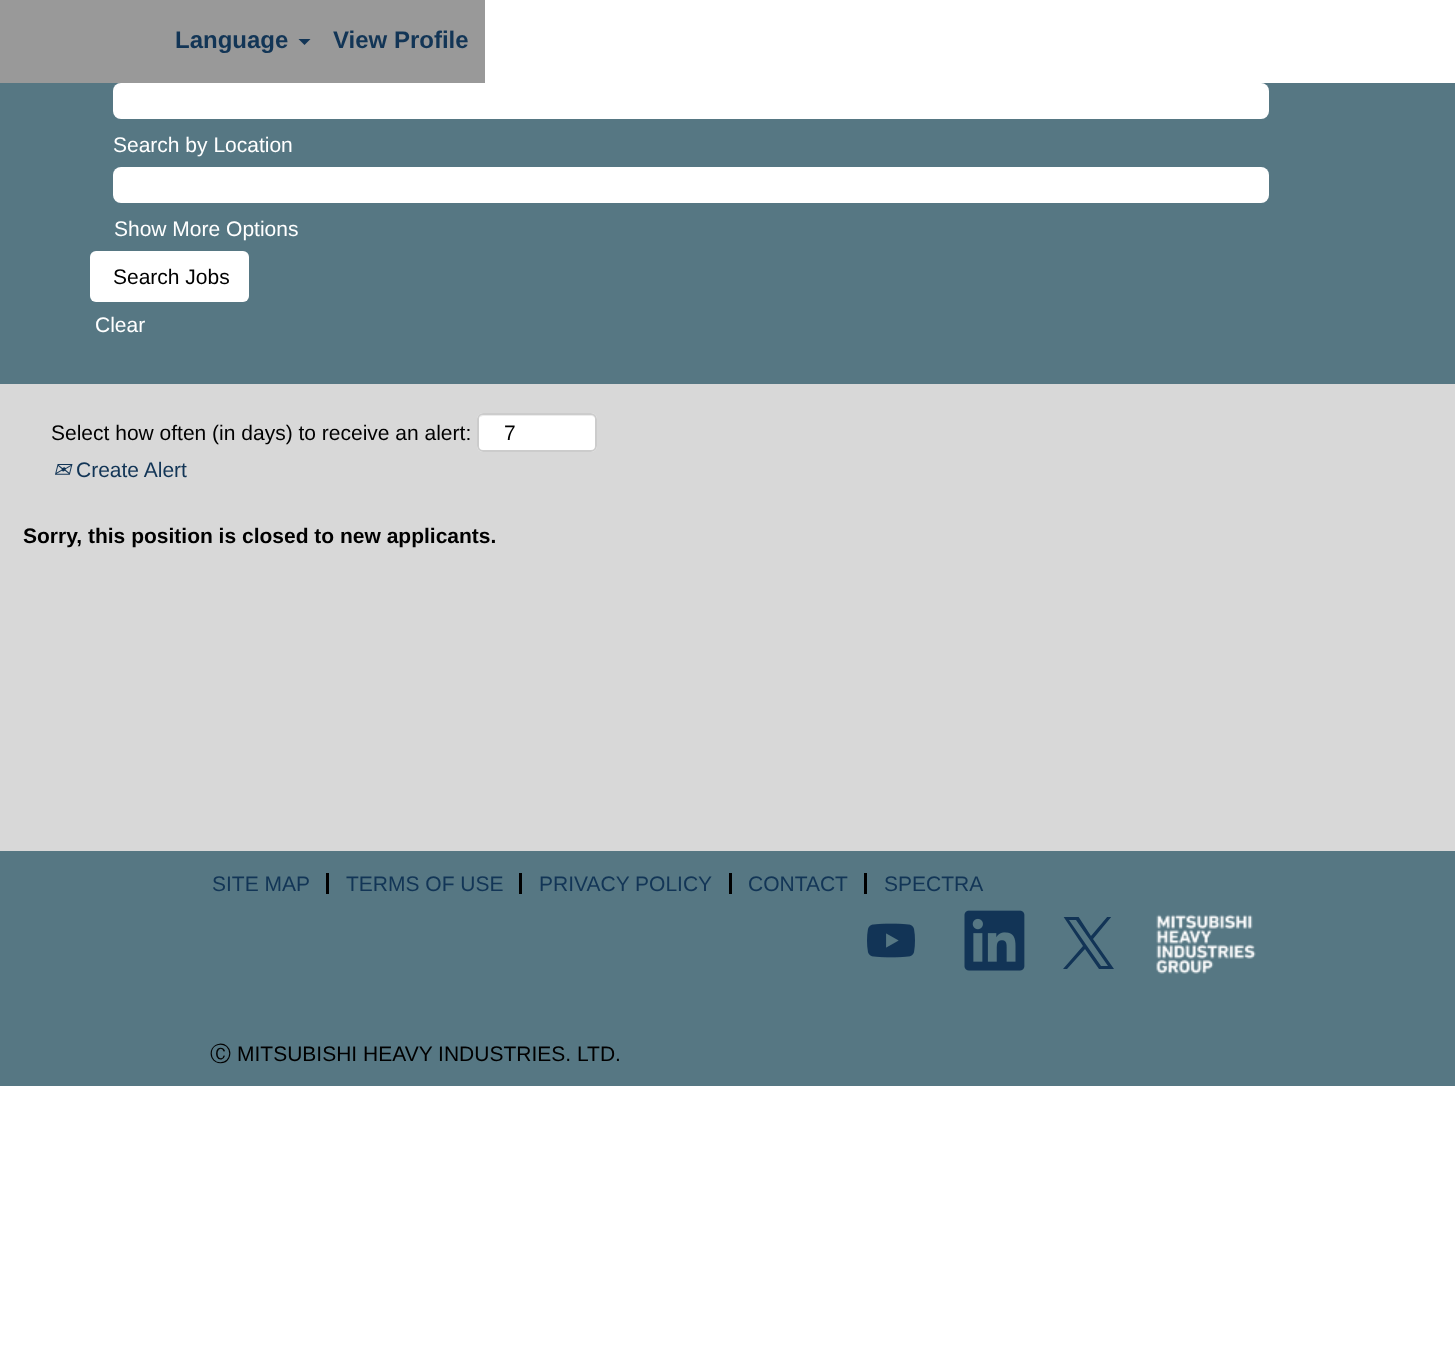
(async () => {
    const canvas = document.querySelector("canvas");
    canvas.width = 1455;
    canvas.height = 1353;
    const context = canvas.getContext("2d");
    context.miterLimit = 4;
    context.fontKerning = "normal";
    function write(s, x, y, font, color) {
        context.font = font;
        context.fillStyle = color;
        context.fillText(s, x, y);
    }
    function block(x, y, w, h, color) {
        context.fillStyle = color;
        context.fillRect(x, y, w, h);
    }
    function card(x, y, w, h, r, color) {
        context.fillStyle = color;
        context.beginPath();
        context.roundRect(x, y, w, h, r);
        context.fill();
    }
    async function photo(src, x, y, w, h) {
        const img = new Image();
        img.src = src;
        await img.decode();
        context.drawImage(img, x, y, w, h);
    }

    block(0, 0, 1455, 1353, "rgb(255, 255, 255)");
    block(0, 0, 485, 83, "rgb(153, 153, 153)");
    write("Language", 175, 48, "bold 24px Liberation Sans", "rgb(18, 53, 86)");
    context.beginPath();
    context.moveTo(298.5, 39);
    context.lineTo(310.5, 39);
    context.lineTo(304.5, 45);
    context.closePath();
    context.fill();
    write("View Profile", 333, 48, "bold 24px Liberation Sans", "rgb(18, 53, 86)");
    block(0, 384, 1455, 467, "rgb(216, 216, 216)");
    block(0, 83, 1455, 301, "rgb(86, 119, 131)");
    card(113, 83, 1156, 36, 8, "rgb(255, 255, 255)");
    write("Search by Location", 113, 152, "21px Liberation Sans", "rgb(255, 255, 255)");
    card(113, 167, 1156, 36, 8, "rgb(255, 255, 255)");
    write("Show More Options", 114, 236, "21px Liberation Sans", "rgb(255, 255, 255)");
    card(90, 251, 159, 51, 6, "rgb(255, 255, 255)");
    write("Search Jobs", 113, 284, "21px Liberation Sans", "rgb(0, 0, 0)");
    write("Clear", 95, 332, "21px Liberation Sans", "rgb(255, 255, 255)");
    write("Select how often (in days) to receive an alert:", 51, 440, "21px Liberation Sans", "rgb(0, 0, 0)");
    card(477, 413, 120, 39, 6, "rgb(255, 255, 255)");
    context.fillStyle = "rgb(236, 236, 236)";
    context.beginPath();
    context.moveTo(483, 416);
    context.lineTo(591, 416);
    context.bezierCurveTo(593, 416, 596, 418, 596, 420);
    context.lineTo(596, 419);
    context.bezierCurveTo(596, 416, 594, 414, 591, 414);
    context.lineTo(484, 414);
    context.bezierCurveTo(482, 414, 480, 416, 479, 418);
    context.bezierCurveTo(480, 417, 482, 416, 483, 416);
    context.closePath();
    context.fill();
    context.beginPath();
    context.roundRect(478, 414, 118, 37, 5);
    context.strokeStyle = "rgb(204, 204, 204)";
    context.lineWidth = 2;
    context.stroke();
    write("7", 504, 440, "21px Liberation Sans", "rgb(0, 0, 0)");
    write("✉", 53, 477, "italic 21px DejaVu Sans", "rgb(18, 53, 86)");
    write("Create Alert", 76, 477, "21px Liberation Sans", "rgb(18, 53, 86)");
    write("Sorry, this position is closed to new applicants.", 23, 543, "bold 21px Liberation Sans", "rgb(0, 0, 0)");
    block(0, 851, 1455, 235, "rgb(86, 119, 131)");
    block(326, 873, 3, 21, "rgb(0, 0, 0)");
    write("SITE MAP", 212, 891, "21px Liberation Sans", "rgb(18, 53, 86)");
    block(519, 873, 3, 21, "rgb(0, 0, 0)");
    write("TERMS OF USE", 346, 891, "21px Liberation Sans", "rgb(18, 53, 86)");
    block(729, 873, 3, 21, "rgb(0, 0, 0)");
    write("PRIVACY POLICY", 539, 891, "21px Liberation Sans", "rgb(18, 53, 86)");
    block(864, 873, 3, 21, "rgb(0, 0, 0)");
    write("CONTACT", 748, 891, "21px Liberation Sans", "rgb(18, 53, 86)");
    write("SPECTRA", 884, 891, "21px Liberation Sans", "rgb(18, 53, 86)");
    await photo("media/1.png", 867, 923, 48, 35);
    await photo("media/2.png", 964, 910, 61, 61);
    context.save();
    context.beginPath();
    context.rect(1062, 917, 53, 52);
    context.clip();
    context.fillStyle = "rgb(18, 52, 86)";
    context.beginPath();
    context.moveTo(1093, 939);
    context.lineTo(1112, 916);
    context.lineTo(1108, 916);
    context.lineTo(1091, 936);
    context.lineTo(1078, 916);
    context.lineTo(1063, 916);
    context.lineTo(1083, 946);
    context.lineTo(1063, 969);
    context.lineTo(1067, 969);
    context.lineTo(1085, 949);
    context.lineTo(1099, 969);
    context.lineTo(1114, 969);
    context.closePath();
    context.moveTo(1087, 946);
    context.lineTo(1069, 920);
    context.lineTo(1076, 920);
    context.lineTo(1108, 966);
    context.lineTo(1101, 966);
    context.closePath();
    context.fill();
    context.restore();
    await photo("media/3.png", 1156, 914, 100, 60);
    write("Ⓒ", 210, 1061, "500 21px WenQuanYi Zen Hei", "rgb(0, 0, 0)");
    write("MITSUBISHI HEAVY INDUSTRIES. LTD.", 237, 1061, "21px Liberation Sans", "rgb(0, 0, 0)");
})();
